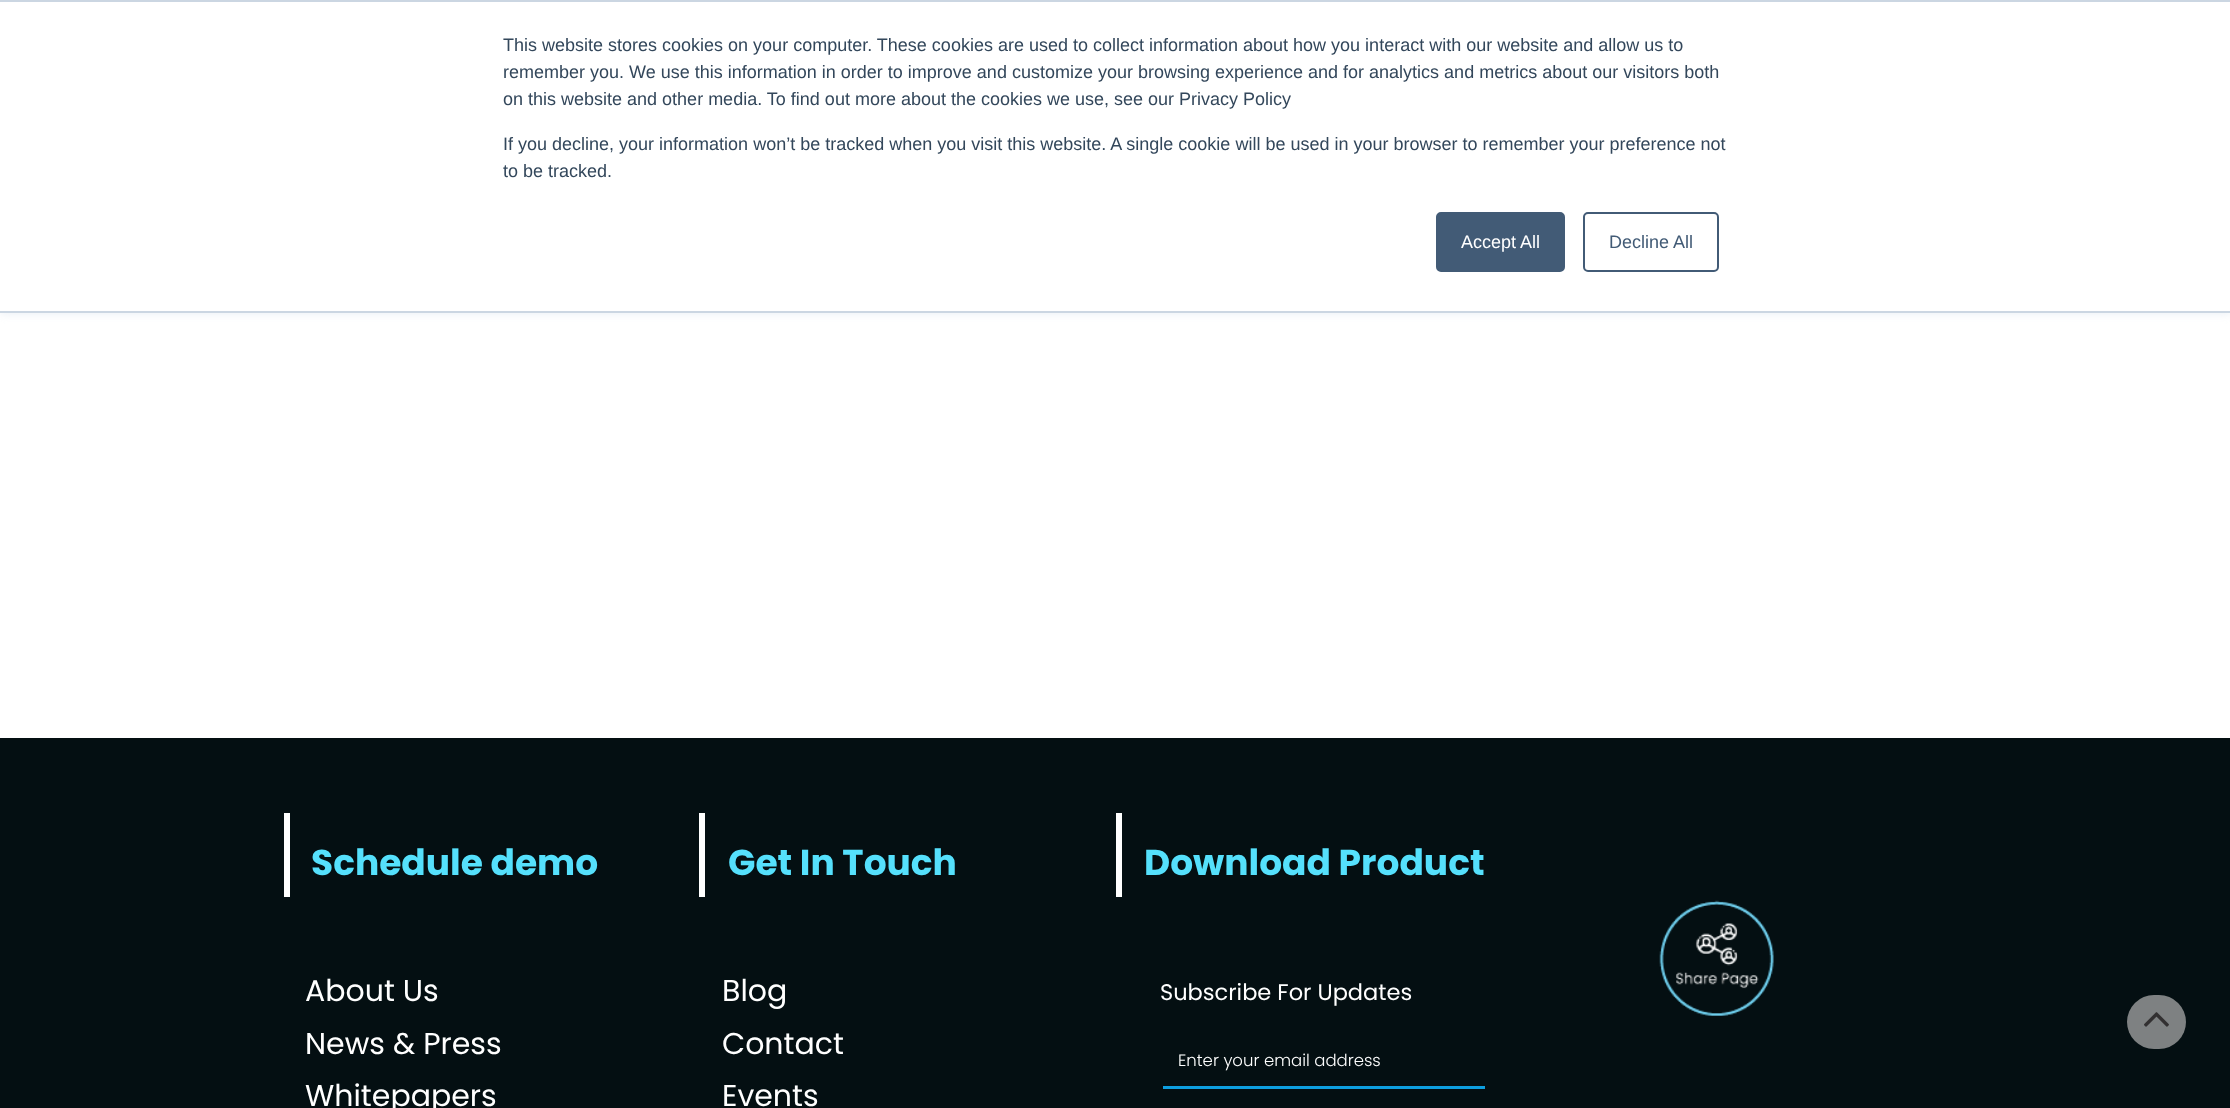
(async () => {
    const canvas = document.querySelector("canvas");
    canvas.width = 2230;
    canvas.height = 1108;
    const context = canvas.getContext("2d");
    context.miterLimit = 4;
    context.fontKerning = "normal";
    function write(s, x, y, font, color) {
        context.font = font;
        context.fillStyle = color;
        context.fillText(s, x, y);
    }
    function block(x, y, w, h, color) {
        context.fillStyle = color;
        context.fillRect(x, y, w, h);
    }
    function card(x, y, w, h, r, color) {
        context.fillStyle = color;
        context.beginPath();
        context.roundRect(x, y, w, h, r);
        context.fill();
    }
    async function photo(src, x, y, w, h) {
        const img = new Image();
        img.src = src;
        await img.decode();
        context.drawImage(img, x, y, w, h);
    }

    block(0, 0, 2230, 1108, "rgb(255, 255, 255)");
    context.fillStyle = "rgb(234, 240, 246)";
    context.filter = "blur(4px)";
    context.beginPath();
    context.rect(0, 2, 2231, 312);
    context.fill();
    context.filter = "none";
    block(0, 2, 2230, 309, "rgb(255, 255, 255)");
    block(0, 0, 2230, 2, "rgb(203, 214, 226)");
    block(0, 311, 2230, 2, "rgb(203, 214, 226)");
    write("This website stores cookies on your computer. These cookies are used to collect information about how you interact with our website and allow us to", 503, 51, "18px Liberation Sans", "rgb(51, 71, 91)");
    write("remember you. We use this information in order to improve and customize your browsing experience and for analytics and metrics about our visitors both", 503, 78, "18px Liberation Sans", "rgb(51, 71, 91)");
    write("on this website and other media. To find out more about the cookies we use, see our Privacy Policy", 503, 105, "18px Liberation Sans", "rgb(51, 71, 91)");
    write("If you decline, your information won’t be tracked when you visit this website. A single cookie will be used in your browser to remember your preference not", 503, 150, "18px Liberation Sans", "rgb(51, 71, 91)");
    write("to be tracked.", 503, 177, "18px Liberation Sans", "rgb(51, 71, 91)");
    context.fillStyle = "rgb(66, 91, 118)";
    context.beginPath();
    context.roundRect(1437, 213, 127, 58, 4);
    context.fill();
    context.strokeStyle = "rgb(66, 91, 118)";
    context.lineWidth = 2;
    context.stroke();
    write("Accept All", 1461, 248, "18px Liberation Sans", "rgb(255, 255, 255)");
    context.beginPath();
    context.roundRect(1584, 213, 134, 58, 4);
    context.stroke();
    write("Decline All", 1609, 248, "18px Liberation Sans", "rgb(66, 91, 118)");
    block(0, 738, 2230, 370, "rgb(4, 15, 18)");
    block(284, 813, 6, 84, "rgb(255, 255, 255)");
    write("Schedule demo", 311, 875, "bold 36px Poppins", "rgb(85, 224, 252)");
    block(699, 813, 6, 84, "rgb(255, 255, 255)");
    write("Get In Touch", 728, 875, "bold 36px Poppins", "rgb(85, 224, 252)");
    block(1116, 813, 6, 84, "rgb(255, 255, 255)");
    write("Download Product", 1144, 875, "bold 36px Poppins", "rgb(85, 224, 252)");
    await photo("media/1.png", 1659, 900, 115, 116);
    write("About Us", 305, 1001, "30px Poppins", "rgb(255, 255, 255)");
    write("News & Press", 305, 1054, "30px Poppins", "rgb(255, 255, 255)");
    write("Whitepapers", 305, 1106, "30px Poppins", "rgb(255, 255, 255)");
    write("Blog", 722, 1001, "30px Poppins", "rgb(255, 255, 255)");
    write("Contact", 722, 1054, "30px Poppins", "rgb(255, 255, 255)");
    write("Events", 722, 1106, "30px Poppins", "rgb(255, 255, 255)");
    write("Subscribe For Updates", 1160, 1000, "22.5px Poppins", "rgb(255, 255, 255)");
    block(1163, 1086, 322, 3, "rgb(13, 158, 223)");
    write("Enter your email address", 1178, 1066, "300 16.5px Poppins", "rgb(255, 255, 255)");
    card(2127, 995, 59, 54, 27, "rgb(126, 129, 130)");
    await photo("media/2.png", 2144, 1012, 25, 15);
})();
